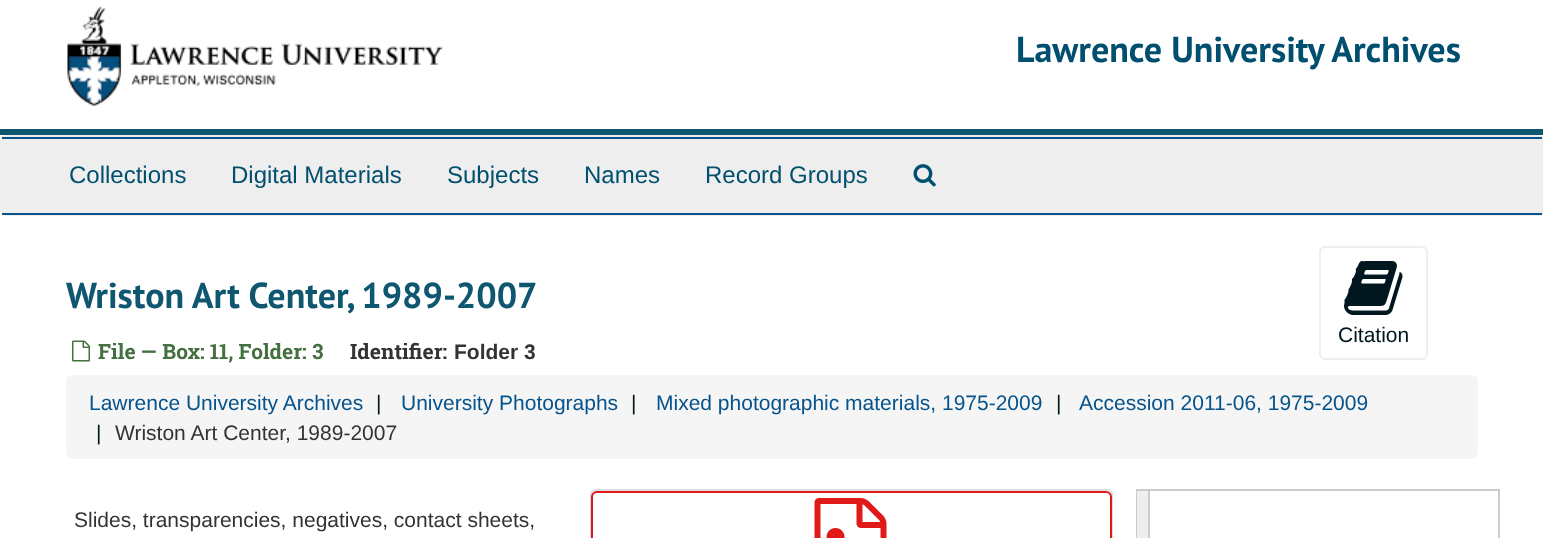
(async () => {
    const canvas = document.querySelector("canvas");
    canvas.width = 1543;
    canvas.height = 538;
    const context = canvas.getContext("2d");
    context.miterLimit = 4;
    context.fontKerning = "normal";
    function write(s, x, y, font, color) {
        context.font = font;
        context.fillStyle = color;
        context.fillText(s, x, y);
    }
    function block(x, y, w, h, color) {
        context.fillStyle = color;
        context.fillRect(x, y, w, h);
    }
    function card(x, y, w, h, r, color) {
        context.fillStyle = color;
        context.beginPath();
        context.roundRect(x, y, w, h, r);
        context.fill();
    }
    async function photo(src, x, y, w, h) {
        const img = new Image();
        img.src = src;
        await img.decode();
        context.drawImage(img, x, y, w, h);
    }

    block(0, 0, 1543, 538, "rgb(255, 255, 255)");
    block(0, 129, 1543, 6, "rgb(15, 86, 112)");
    await photo("media/1.png", 67, 6, 376, 100);
    write("Lawrence University Archives", 1016, 62, "bold 36px PT Sans", "rgb(0, 79, 111)");
    context.fillStyle = "rgb(238, 238, 238)";
    context.beginPath();
    context.roundRect(1, 136, 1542, 79, 5);
    context.fill();
    context.strokeStyle = "rgb(238, 238, 238)";
    context.lineWidth = 2;
    context.stroke();
    block(2, 137, 1540, 2, "rgb(5, 83, 138)");
    block(2, 213, 1540, 2, "rgb(5, 83, 138)");
    write("Collections", 69, 183, "24px Liberation Sans", "rgb(0, 79, 111)");
    write("Digital Materials", 231, 183, "24px Liberation Sans", "rgb(0, 79, 111)");
    write("Subjects", 447, 183, "24px Liberation Sans", "rgb(0, 79, 111)");
    write("Names", 584, 183, "24px Liberation Sans", "rgb(0, 79, 111)");
    write("Record Groups", 705, 183, "24px Liberation Sans", "rgb(0, 79, 111)");
    await photo("media/2.png", 913, 164, 23, 23);
    write("Wriston Art Center, 1989-2007", 66, 308, "bold 36px PT Sans", "rgb(15, 86, 112)");
    await photo("media/3.png", 72, 340, 18, 22);
    write("File — Box: 11, Folder: 3", 98, 359, "bold 21px Roboto Slab", "rgb(69, 113, 65)");
    write("Identifier:", 350, 359, "bold 21px Roboto Slab", "rgb(51, 51, 51)");
    write("Folder 3", 454, 359, "bold 21px Liberation Sans", "rgb(51, 51, 51)");
    context.beginPath();
    context.roundRect(1320, 247, 107, 112, 5);
    context.stroke();
    await photo("media/4.png", 1344, 261, 59, 54);
    write("Citation", 1338, 342, "21px Liberation Sans", "rgb(0, 23, 31)");
    card(66, 375, 1412, 84, 6, "rgb(245, 245, 245)");
    write("Lawrence University Archives", 89, 410, "21px Liberation Sans", "rgb(5, 83, 138)");
    write("|", 376, 410, "21px Liberation Sans", "rgb(0, 23, 31)");
    write("University Photographs", 401, 410, "21px Liberation Sans", "rgb(5, 83, 138)");
    write("|", 631, 410, "21px Liberation Sans", "rgb(0, 23, 31)");
    write("Mixed photographic materials, 1975-2009", 656, 410, "21px Liberation Sans", "rgb(5, 83, 138)");
    write("|", 1056, 410, "21px Liberation Sans", "rgb(0, 23, 31)");
    write("Accession 2011-06, 1975-2009", 1079, 410, "21px Liberation Sans", "rgb(5, 83, 138)");
    write("|", 96, 440, "21px Liberation Sans", "rgb(0, 23, 31)");
    write("Wriston Art Center, 1989-2007", 115, 440, "21px Liberation Sans", "rgb(51, 51, 51)");
    write("Slides, transparencies, negatives, contact sheets,", 74, 527, "21px Liberation Sans", "rgb(51, 51, 51)");
    context.beginPath();
    context.roundRect(591, 490, 521, 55, 5);
    context.strokeStyle = "rgb(221, 221, 221)";
    context.stroke();
    context.fillStyle = "rgb(255, 255, 255)";
    context.beginPath();
    context.roundRect(592, 492, 519, 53, 5);
    context.fill();
    context.strokeStyle = "rgb(224, 25, 25)";
    context.stroke();
    await photo("media/5.png", 814, 498, 73, 40);
    context.strokeStyle = "rgb(204, 204, 204)";
    context.strokeRect(1137, 490, 362, 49);
    block(1137, 491, 11, 47, "rgb(238, 238, 238)");
    block(1148, 491, 2, 47, "rgb(204, 204, 204)");
})();
